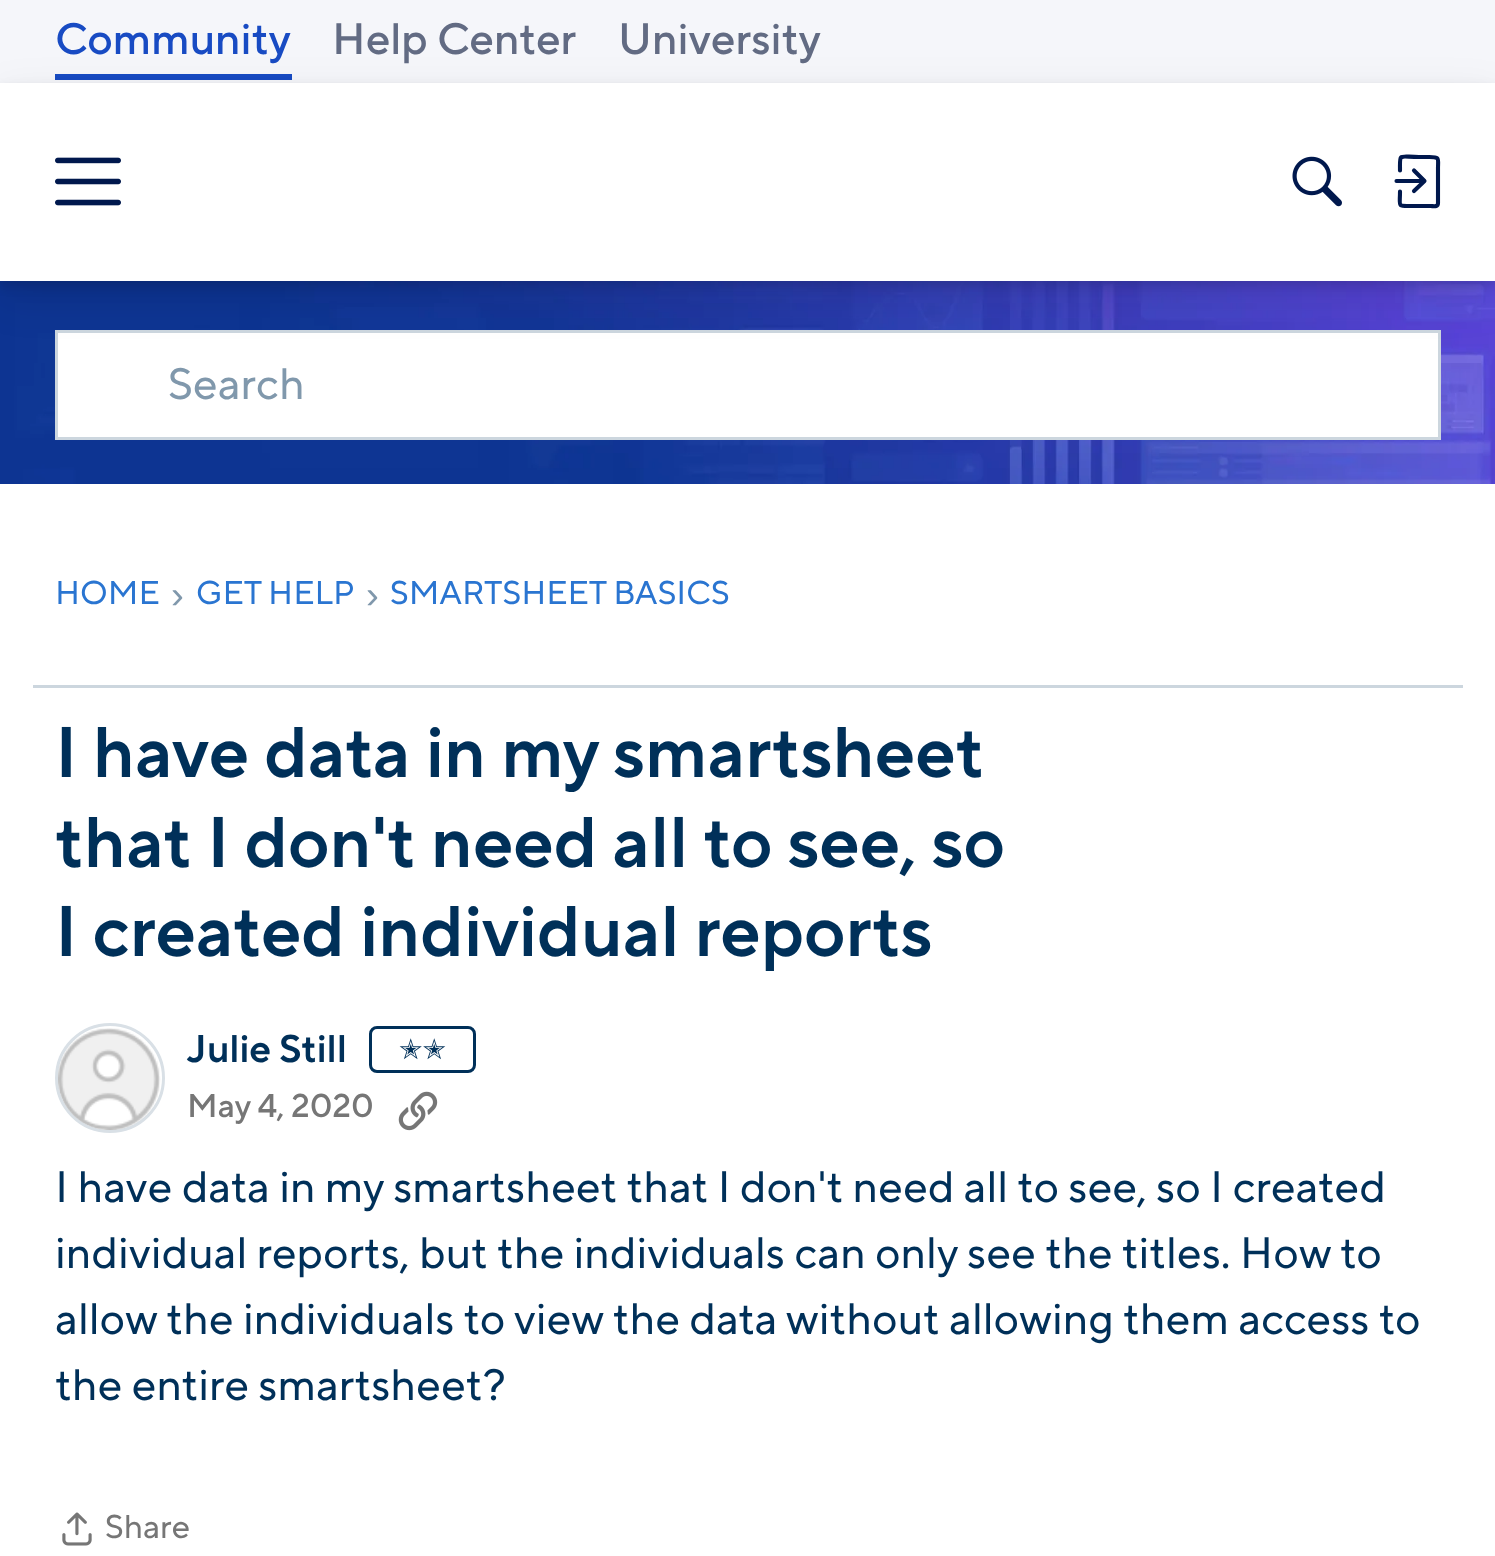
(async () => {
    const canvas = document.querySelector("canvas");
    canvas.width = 1495;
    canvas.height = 1556;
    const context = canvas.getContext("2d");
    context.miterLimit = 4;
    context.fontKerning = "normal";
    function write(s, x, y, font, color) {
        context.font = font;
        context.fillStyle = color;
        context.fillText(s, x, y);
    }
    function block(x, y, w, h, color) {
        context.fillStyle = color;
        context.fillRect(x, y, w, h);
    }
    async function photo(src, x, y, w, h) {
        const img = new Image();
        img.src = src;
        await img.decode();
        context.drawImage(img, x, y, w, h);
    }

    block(0, 0, 1495, 1556, "rgb(255, 255, 255)");
    block(0, 0, 1495, 83, "rgb(245, 246, 250)");
    write("Community", 55, 54, "500 44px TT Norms", "rgb(24, 75, 195)");
    block(55, 74, 237, 6, "rgb(24, 75, 195)");
    write("Help Center", 332, 54, "500 44px TT Norms", "rgb(98, 107, 131)");
    write("University", 618, 54, "500 44px TT Norms", "rgb(98, 107, 131)");
    await photo("media/3.png", 0, 281, 1495, 203);
    context.fillStyle = "rgb(255, 255, 255)";
    context.beginPath();
    context.rect(56.5, 331.5, 1383, 107);
    context.fill();
    context.strokeStyle = "rgb(204, 214, 222)";
    context.lineWidth = 3;
    context.stroke();
    context.fillStyle = "rgba(0, 0, 0, 0.1)";
    context.filter = "blur(22px)";
    context.beginPath();
    context.rect(0, 99, 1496, 198);
    context.fill();
    context.filter = "none";
    context.fillStyle = "rgba(0, 0, 0, 0.12)";
    context.filter = "blur(5.5px)";
    context.beginPath();
    context.rect(0, 88, 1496, 198);
    context.fill();
    context.filter = "none";
    block(0, 83, 1495, 198, "rgb(255, 255, 255)");
    await photo("media/1.png", 55, 157, 66, 49);
    await photo("media/2.png", 1292, 156, 50, 51);
    context.beginPath();
    context.moveTo(1414, 191);
    context.lineTo(1424.5, 181);
    context.lineTo(1414, 170.5);
    context.strokeStyle = "rgb(0, 24, 77)";
    context.lineWidth = 4.1;
    context.lineCap = "round";
    context.lineJoin = "round";
    context.stroke();
    context.beginPath();
    context.moveTo(1423.5, 181);
    context.lineTo(1396.5, 181);
    context.lineJoin = "miter";
    context.stroke();
    context.beginPath();
    context.moveTo(1400, 170.5);
    context.bezierCurveTo(1400, 152.5, 1398, 157, 1419, 157);
    context.lineTo(1429.5, 157);
    context.bezierCurveTo(1440, 157, 1438, 158, 1438, 168.5);
    context.lineTo(1438, 203);
    context.bezierCurveTo(1438, 207.5, 1433.5, 206, 1430.5, 206);
    context.lineTo(1414, 206);
    context.bezierCurveTo(1396.5, 206, 1400, 208, 1400, 191.5);
    context.lineJoin = "round";
    context.stroke();
    write("Search", 168, 399, "44px TT Norms", "rgb(128, 152, 172)");
    write("HOME", 55, 604, "33px TT Norms", "rgb(42, 117, 209)");
    write("›", 171, 608, "38.5px Liberation Sans", "rgb(128, 152, 172)");
    write("GET HELP", 196, 604, "33px TT Norms", "rgb(42, 117, 209)");
    write("›", 366, 608, "38.5px Liberation Sans", "rgb(128, 152, 172)");
    write("SMARTSHEET BASICS", 390, 604, "33px TT Norms", "rgb(42, 117, 209)");
    block(33, 685, 1430, 3, "rgb(204, 214, 222)");
    write("I have data in my smartsheet", 55, 777, "600 71.5px TT Norms", "rgb(0, 48, 89)");
    write("that I don't need all to see, so", 55, 867, "600 71.5px TT Norms", "rgb(0, 48, 89)");
    write("I created individual reports", 55, 956, "600 71.5px TT Norms", "rgb(0, 48, 89)");
    context.beginPath();
    context.arc(110, 1078, 53.5, 0, Math.PI * 2);
    context.strokeStyle = "rgb(217, 224, 230)";
    context.lineWidth = 3;
    context.stroke();
    await photo("media/4.png", 58, 1028, 103, 102);
    write("Julie Still", 187, 1062, "600 38.5px TT Norms", "rgb(0, 48, 89)");
    context.beginPath();
    context.roundRect(370.5, 1027.5, 104, 44, 6.5);
    context.strokeStyle = "rgb(0, 48, 89)";
    context.lineJoin = "miter";
    context.stroke();
    write("✭✭", 399, 1059, "28px DejaVu Sans", "rgb(0, 48, 89)");
    write("May 4, 2020", 187, 1117, "500 33px TT Norms", "rgb(118, 118, 118)");
    await photo("media/5.png", 398, 1091, 40, 40);
    write("I have data in my smartsheet that I don't need all to see, so I created", 55, 1202, "44px TT Norms", "rgb(0, 48, 89)");
    write("individual reports, but the individuals can only see the titles. How to", 55, 1268, "44px TT Norms", "rgb(0, 48, 89)");
    write("allow the individuals to view the data without allowing them access to", 55, 1334, "44px TT Norms", "rgb(0, 48, 89)");
    write("the entire smartsheet?", 55, 1400, "44px TT Norms", "rgb(0, 48, 89)");
    await photo("media/6.png", 62, 1512, 30, 34);
    write("Share", 105, 1538, "33px TT Norms", "rgb(118, 118, 118)");
})();
